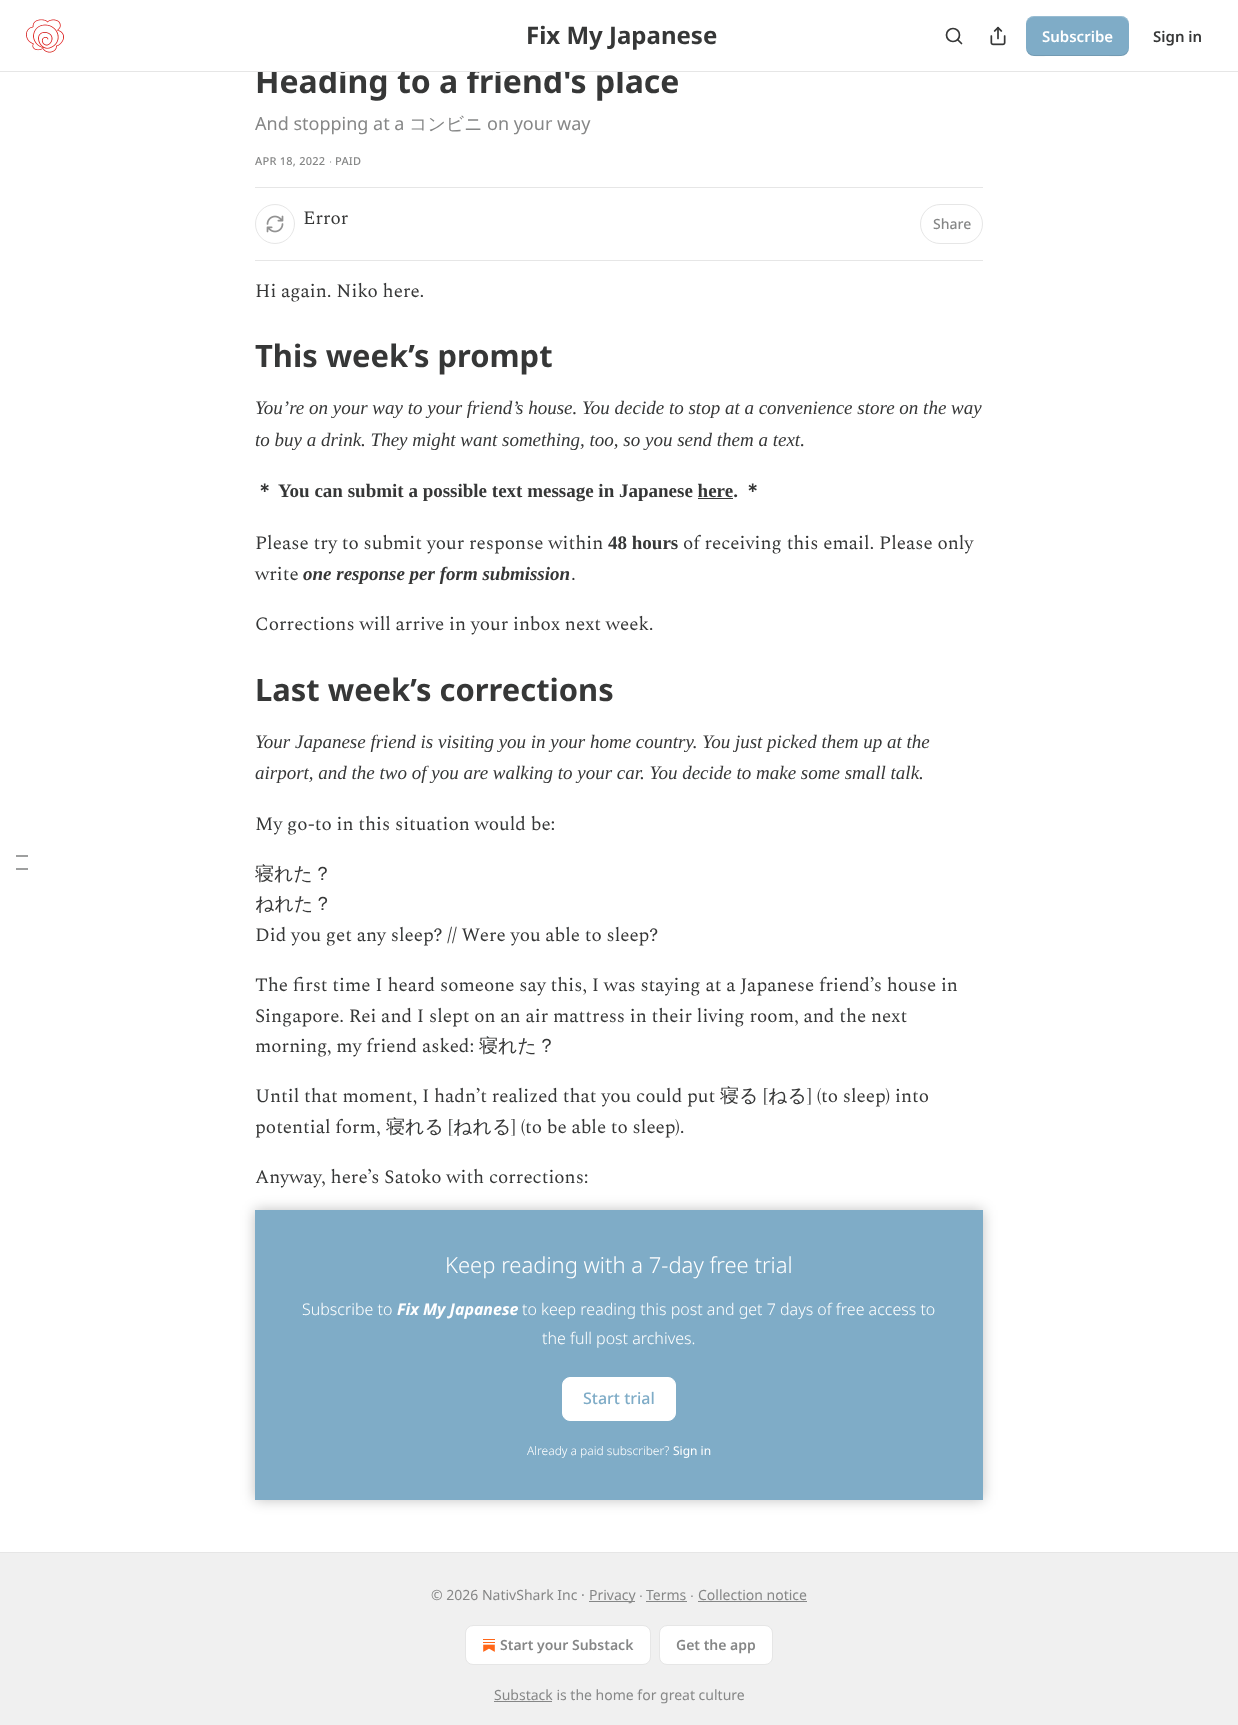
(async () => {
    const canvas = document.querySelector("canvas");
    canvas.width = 1238;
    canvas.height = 1725;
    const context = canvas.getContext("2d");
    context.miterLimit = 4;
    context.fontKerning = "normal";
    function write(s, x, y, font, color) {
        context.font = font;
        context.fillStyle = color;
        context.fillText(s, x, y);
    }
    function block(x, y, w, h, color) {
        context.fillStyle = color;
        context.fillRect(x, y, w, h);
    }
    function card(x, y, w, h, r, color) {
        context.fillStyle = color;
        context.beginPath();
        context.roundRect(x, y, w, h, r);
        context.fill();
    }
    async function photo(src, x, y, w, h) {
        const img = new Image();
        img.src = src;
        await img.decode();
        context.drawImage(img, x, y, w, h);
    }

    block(0, 0, 1238, 1725, "rgb(255, 255, 255)");
    write("Heading to a friend's place", 255, 93, "bold 32px Noto Sans", "rgb(54, 55, 55)");
    block(257, 68, 366, 3, "rgb(255, 255, 255)");
    block(0, 71, 1238, 1, "rgb(230, 230, 230)");
    await photo("media/1.png", 26, 19, 38, 34);
    write("Fix My Japanese", 526, 44, "bold 24px Noto Sans", "rgb(54, 55, 55)");
    context.beginPath();
    context.arc(953, 35, 6.5, 0, Math.PI * 2);
    context.strokeStyle = "rgb(54, 55, 55)";
    context.lineWidth = 1.7;
    context.stroke();
    context.beginPath();
    context.moveTo(961.5, 43.5);
    context.lineTo(958, 40);
    context.lineCap = "round";
    context.lineJoin = "round";
    context.stroke();
    await photo("media/2.png", 990, 26, 16, 20);
    card(1026, 16, 103, 40, 8, "rgb(127, 172, 199)");
    context.fillStyle = "rgba(0, 0, 0, 0.1)";
    context.beginPath();
    context.moveTo(1026, 47);
    context.bezierCurveTo(1026, 59, 1040, 56, 1048, 56);
    context.lineTo(1106, 56);
    context.bezierCurveTo(1115, 56, 1129, 59, 1129, 47);
    context.bezierCurveTo(1129, 51, 1125, 55, 1121, 55);
    context.lineTo(1034, 55);
    context.bezierCurveTo(1030, 55, 1026, 51, 1026, 47);
    context.closePath();
    context.fill();
    context.fillStyle = "rgba(255, 255, 255, 0.2)";
    context.beginPath();
    context.moveTo(1034, 17);
    context.lineTo(1121, 17);
    context.bezierCurveTo(1125, 17, 1129, 21, 1129, 25);
    context.bezierCurveTo(1129, 13, 1115, 16, 1106, 16);
    context.lineTo(1048, 16);
    context.bezierCurveTo(1040, 16, 1026, 13, 1026, 25);
    context.bezierCurveTo(1026, 21, 1030, 17, 1034, 17);
    context.closePath();
    context.fill();
    write("Subscribe", 1042, 42, "600 15px Noto Sans", "rgb(255, 255, 255)");
    write("Sign in", 1153, 42, "600 15px Noto Sans", "rgb(54, 55, 55)");
    write("And stopping at a", 255, 130, "18px Noto Sans", "rgb(134, 135, 135)");
    write("コンビニ", 409, 130, "500 18px WenQuanYi Zen Hei", "rgb(134, 135, 135)");
    write("on your way", 487, 130, "18px Noto Sans", "rgb(134, 135, 135)");
    context.letterSpacing = "0.25px";
    write("APR 18, 2022", 255, 165, "500 11px Noto Sans", "rgb(134, 135, 135)");
    write("∙", 329, 165, "11px Liberation Sans", "rgb(134, 135, 135)");
    write("PAID", 335, 165, "500 11px Noto Sans", "rgb(134, 135, 135)");
    block(255, 187, 728, 1, "rgb(230, 230, 230)");
    block(255, 260, 728, 1, "rgb(230, 230, 230)");
    context.beginPath();
    context.arc(275, 224, 19.5, 0, Math.PI * 2);
    context.strokeStyle = "rgb(230, 230, 230)";
    context.lineWidth = 1;
    context.stroke();
    await photo("media/3.png", 266, 215, 18, 18);
    context.letterSpacing = "0px";
    write("Error", 303, 224, "19px Spectral", "rgb(54, 55, 55)");
    context.beginPath();
    context.roundRect(920.5, 204.5, 62, 39, 19.5);
    context.lineJoin = "miter";
    context.stroke();
    write("Share", 933, 229, "500 14px Noto Sans", "rgb(134, 135, 135)");
    block(16, 855, 12, 2, "rgb(158, 159, 159)");
    block(16, 868, 12, 2, "rgb(158, 159, 159)");
    write("Hi again. Niko here.", 255, 297, "19px Spectral", "rgb(54, 55, 55)");
    write("This week’s prompt", 255, 367, "bold 30.9px Noto Sans", "rgb(54, 55, 55)");
    write("You’re on your way to your friend’s house. You decide to stop at a convenience store on the way", 255, 414, "italic 19px Liberation Serif", "rgb(54, 55, 55)");
    write("to buy a drink. They might want something, too, so you send them a text.", 255, 446, "italic 19px Liberation Serif", "rgb(54, 55, 55)");
    write("＊", 255, 497, "bold 19px WenQuanYi Zen Hei", "rgb(54, 55, 55)");
    write("You can submit a possible text message in Japanese here.", 278, 497, "bold 19px Liberation Serif", "rgb(54, 55, 55)");
    block(698, 498, 35, 1, "rgb(54, 55, 55)");
    write("＊", 743, 497, "bold 19px WenQuanYi Zen Hei", "rgb(54, 55, 55)");
    write("Please try to submit your response within", 255, 549, "19px Spectral", "rgb(54, 55, 55)");
    write("48 hours", 608, 549, "bold 19px Liberation Serif", "rgb(54, 55, 55)");
    write("of receiving this email. Please only", 683, 549, "19px Spectral", "rgb(54, 55, 55)");
    write("write", 255, 580, "19px Spectral", "rgb(54, 55, 55)");
    write("one response per form submission", 303, 580, "italic bold 19px Liberation Serif", "rgb(54, 55, 55)");
    write(".", 571, 580, "19px Spectral", "rgb(54, 55, 55)");
    write("Corrections will arrive in your inbox next week.", 255, 630, "19px Spectral", "rgb(54, 55, 55)");
    write("Last week’s corrections", 255, 701, "bold 30.9px Noto Sans", "rgb(54, 55, 55)");
    write("Your Japanese friend is visiting you in your home country. You just picked them up at the", 255, 748, "italic 19px Liberation Serif", "rgb(54, 55, 55)");
    write("airport, and the two of you are walking to your car. You decide to make some small talk.", 255, 779, "italic 19px Liberation Serif", "rgb(54, 55, 55)");
    write("My go-to in this situation would be:", 255, 830, "19px Spectral", "rgb(54, 55, 55)");
    write("寝れた？", 255, 880, "500 19px WenQuanYi Zen Hei", "rgb(54, 55, 55)");
    write("ねれた？", 255, 910, "500 19px WenQuanYi Zen Hei", "rgb(54, 55, 55)");
    write("Did you get any sleep? // Were you able to sleep?", 255, 941, "19px Spectral", "rgb(54, 55, 55)");
    write("The first time I heard someone say this, I was staying at a Japanese friend’s house in", 255, 991, "19px Spectral", "rgb(54, 55, 55)");
    write("Singapore. Rei and I slept on an air mattress in their living room, and the next", 255, 1022, "19px Spectral", "rgb(54, 55, 55)");
    write("morning, my friend asked:", 255, 1052, "19px Spectral", "rgb(54, 55, 55)");
    write("寝れた？", 479, 1052, "500 19px WenQuanYi Zen Hei", "rgb(54, 55, 55)");
    write("Until that moment, I hadn’t realized that you could put", 255, 1102, "19px Spectral", "rgb(54, 55, 55)");
    write("寝る", 720, 1102, "500 19px WenQuanYi Zen Hei", "rgb(54, 55, 55)");
    write("[", 763, 1102, "19px Spectral", "rgb(54, 55, 55)");
    write("ねる", 768, 1102, "500 19px WenQuanYi Zen Hei", "rgb(54, 55, 55)");
    write("] (to sleep) into", 807, 1102, "19px Spectral", "rgb(54, 55, 55)");
    write("potential form,", 255, 1133, "19px Spectral", "rgb(54, 55, 55)");
    write("寝れる", 386, 1133, "500 19px WenQuanYi Zen Hei", "rgb(54, 55, 55)");
    write("[", 448, 1133, "19px Spectral", "rgb(54, 55, 55)");
    write("ねれる", 453, 1133, "500 19px WenQuanYi Zen Hei", "rgb(54, 55, 55)");
    write("] (to be able to sleep).", 511, 1133, "19px Spectral", "rgb(54, 55, 55)");
    write("Anyway, here’s Satoko with corrections:", 255, 1183, "19px Spectral", "rgb(54, 55, 55)");
    block(255, 1210, 728, 290, "rgb(127, 172, 199)");
    context.fillStyle = "rgb(255, 255, 255)";
    context.beginPath();
    context.roundRect(562.5, 1377.5, 113, 43, 7.5);
    context.fill();
    context.strokeStyle = "rgb(255, 255, 255)";
    context.stroke();
    context.save();
    context.beginPath();
    context.moveTo(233, 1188);
    context.lineTo(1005, 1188);
    context.lineTo(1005, 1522);
    context.lineTo(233, 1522);
    context.closePath();
    context.moveTo(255, 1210);
    context.lineTo(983, 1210);
    context.lineTo(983, 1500);
    context.lineTo(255, 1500);
    context.closePath();
    context.clip("evenodd");
    context.fillStyle = "rgba(0, 0, 0, 0.25)";
    context.filter = "blur(7px)";
    context.beginPath();
    context.rect(255, 1210, 728, 290);
    context.fill();
    context.filter = "none";
    context.restore();
    write("Keep reading with a 7-day free trial", 445, 1273, "300 22px Noto Sans", "rgb(255, 255, 255)");
    write("Subscribe to", 302, 1315, "300 16px Noto Sans", "rgb(255, 255, 255)");
    write("Fix My Japanese", 397, 1315, "italic bold 16px Noto Sans", "rgb(255, 255, 255)");
    write("to keep reading this post and get 7 days of free access to", 522, 1315, "300 16px Noto Sans", "rgb(255, 255, 255)");
    write("the full post archives.", 542, 1344, "300 16px Noto Sans", "rgb(255, 255, 255)");
    write("Start trial", 583, 1404, "500 16px Noto Sans", "rgb(127, 172, 199)");
    write("Already a paid subscriber?", 527, 1455, "300 12px Noto Sans", "rgb(255, 255, 255)");
    write("Sign in", 673, 1455, "12px Noto Sans", "rgb(255, 255, 255)");
    block(0, 1553, 1238, 172, "rgb(240, 240, 240)");
    block(0, 1552, 1238, 1, "rgb(230, 230, 230)");
    write("© 2026 NativShark Inc ·", 431, 1600, "14px Noto Sans", "rgb(134, 135, 135)");
    block(589, 1601, 46, 1, "rgb(134, 135, 135)");
    write("Privacy", 589, 1600, "14px Noto Sans", "rgb(134, 135, 135)");
    write("∙", 639, 1600, "14px Liberation Sans", "rgb(134, 135, 135)");
    write("Terms", 646, 1600, "14px Noto Sans", "rgb(134, 135, 135)");
    block(646, 1601, 41, 1, "rgb(134, 135, 135)");
    write("∙", 690, 1600, "14px Liberation Sans", "rgb(134, 135, 135)");
    write("Collection notice", 698, 1600, "14px Noto Sans", "rgb(134, 135, 135)");
    block(698, 1601, 109, 1, "rgb(134, 135, 135)");
    context.fillStyle = "rgb(255, 255, 255)";
    context.beginPath();
    context.roundRect(465.5, 1625.5, 185, 39, 7.5);
    context.fill();
    context.strokeStyle = "rgb(230, 230, 230)";
    context.stroke();
    await photo("media/4.png", 483, 1639, 12, 13);
    write("Start your Substack", 500, 1650, "600 14px Noto Sans", "rgb(134, 135, 135)");
    context.fillStyle = "rgb(255, 255, 255)";
    context.beginPath();
    context.roundRect(659.5, 1625.5, 113, 39, 7.5);
    context.fill();
    context.stroke();
    write("Get the app", 676, 1650, "600 14px Noto Sans", "rgb(134, 135, 135)");
    block(494, 1701, 58, 1, "rgb(134, 135, 135)");
    write("Substack is the home for great culture", 494, 1700, "14px Noto Sans", "rgb(134, 135, 135)");
})();
